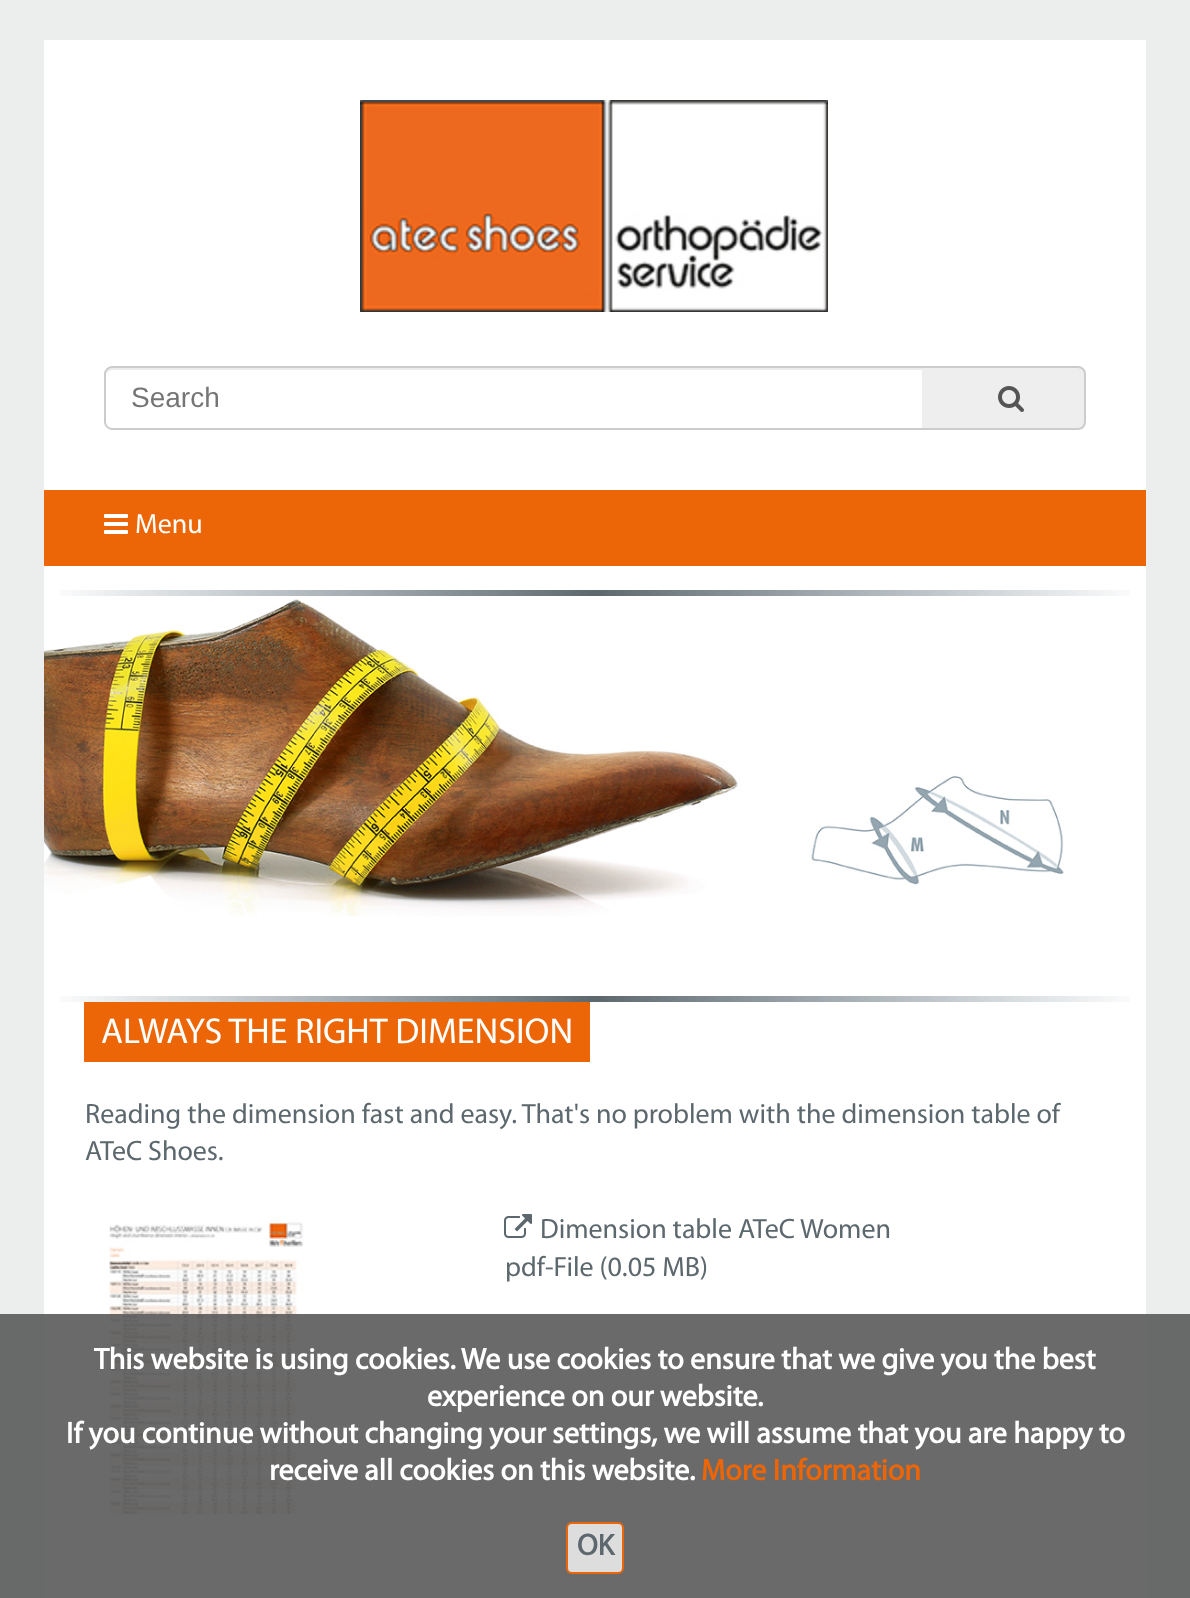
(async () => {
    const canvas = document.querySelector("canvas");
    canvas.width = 1190;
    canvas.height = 1598;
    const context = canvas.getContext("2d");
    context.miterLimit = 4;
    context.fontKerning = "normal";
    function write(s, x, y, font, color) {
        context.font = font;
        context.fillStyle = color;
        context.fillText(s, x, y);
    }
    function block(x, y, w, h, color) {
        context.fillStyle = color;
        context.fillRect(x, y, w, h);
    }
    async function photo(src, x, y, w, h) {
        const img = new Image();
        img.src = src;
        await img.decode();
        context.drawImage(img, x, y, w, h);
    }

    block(0, 0, 1190, 1598, "rgb(236, 238, 237)");
    block(44, 40, 1102, 1558, "rgb(255, 255, 255)");
    await photo("media/1.png", 360, 100, 468, 212);
    context.fillStyle = "rgb(238, 238, 238)";
    context.beginPath();
    context.roundRect(889, 367, 196, 62, [0, 7, 7, 0]);
    context.fill();
    context.strokeStyle = "rgb(204, 204, 204)";
    context.lineWidth = 2;
    context.stroke();
    context.fillStyle = "rgb(255, 255, 255)";
    context.beginPath();
    context.roundRect(104, 366, 818, 64, [8, 0, 0, 8]);
    context.fill();
    context.fillStyle = "rgb(236, 236, 236)";
    context.beginPath();
    context.moveTo(112, 370);
    context.lineTo(922, 370);
    context.lineTo(922, 368);
    context.lineTo(112, 368);
    context.bezierCurveTo(107, 368, 106, 372, 106, 376);
    context.bezierCurveTo(106, 373, 109, 370, 112, 370);
    context.closePath();
    context.fill();
    context.fillStyle = "rgb(204, 204, 204)";
    context.beginPath();
    context.moveTo(112, 366);
    context.lineTo(922, 366);
    context.lineTo(922, 430);
    context.lineTo(112, 430);
    context.bezierCurveTo(108, 430, 104, 426, 104, 422);
    context.lineTo(104, 374);
    context.bezierCurveTo(104, 370, 108, 366, 112, 366);
    context.closePath();
    context.moveTo(112, 368);
    context.lineTo(922, 368);
    context.lineTo(922, 428);
    context.lineTo(112, 428);
    context.bezierCurveTo(109, 428, 106, 425, 106, 422);
    context.lineTo(106, 374);
    context.bezierCurveTo(106, 371, 109, 368, 112, 368);
    context.closePath();
    context.fill("evenodd");
    write("Search", 131, 407, "28px Liberation Sans", "rgb(117, 117, 117)");
    await photo("media/2.png", 998, 386, 26, 26);
    block(44, 490, 1102, 76, "rgb(236, 102, 7)");
    await photo("media/3.png", 104, 514, 24, 20);
    write("Menu", 135, 533, "28px Myriad", "rgb(255, 255, 255)");
    await photo("media/4.png", 60, 590, 1070, 6);
    await photo("media/5.png", 44, 599, 1020, 317);
    await photo("media/4.png", 60, 996, 1070, 6);
    block(84, 1002, 506, 60, "rgb(236, 102, 7)");
    write("ALWAYS THE RIGHT DIMENSION", 101, 1043, "36px Myriad", "rgb(255, 255, 255)");
    write("Reading the dimension fast and easy. That's no problem with the dimension table of", 85, 1123, "28px Myriad", "rgb(92, 104, 109)");
    write("ATeC Shoes.", 85, 1160, "28px Myriad", "rgb(92, 104, 109)");
    await photo("media/6.png", 109, 1222, 195, 293);
    await photo("media/7.png", 504, 1214, 28, 24);
    write("Dimension table ATeC Women", 540, 1238, "28px Myriad", "rgb(92, 104, 109)");
    write("pdf-File (0.05 MB)", 505, 1276, "28px Myriad", "rgb(92, 104, 109)");
    block(0, 1314, 1190, 284, "rgba(90, 90, 90, 0.9)");
    write("This website is using cookies. We use cookies to ensure that we give you the best", 94, 1369, "bold 30px Myriad", "rgb(255, 255, 255)");
    write("experience on our website.", 427, 1406, "bold 30px Myriad", "rgb(255, 255, 255)");
    write("If you continue without changing your settings, we will assume that you are happy to", 66, 1443, "bold 30px Myriad", "rgb(255, 255, 255)");
    write("receive all cookies on this website.", 269, 1480, "bold 30px Myriad", "rgb(255, 255, 255)");
    write("More Information", 701, 1480, "bold 30px Myriad", "rgb(236, 102, 7)");
    context.fillStyle = "rgb(221, 221, 221)";
    context.beginPath();
    context.roundRect(567, 1523, 56, 50, 5);
    context.fill();
    context.strokeStyle = "rgb(236, 102, 7)";
    context.stroke();
    write("OK", 577, 1555, "bold 30px Myriad", "rgb(92, 104, 109)");
})();
